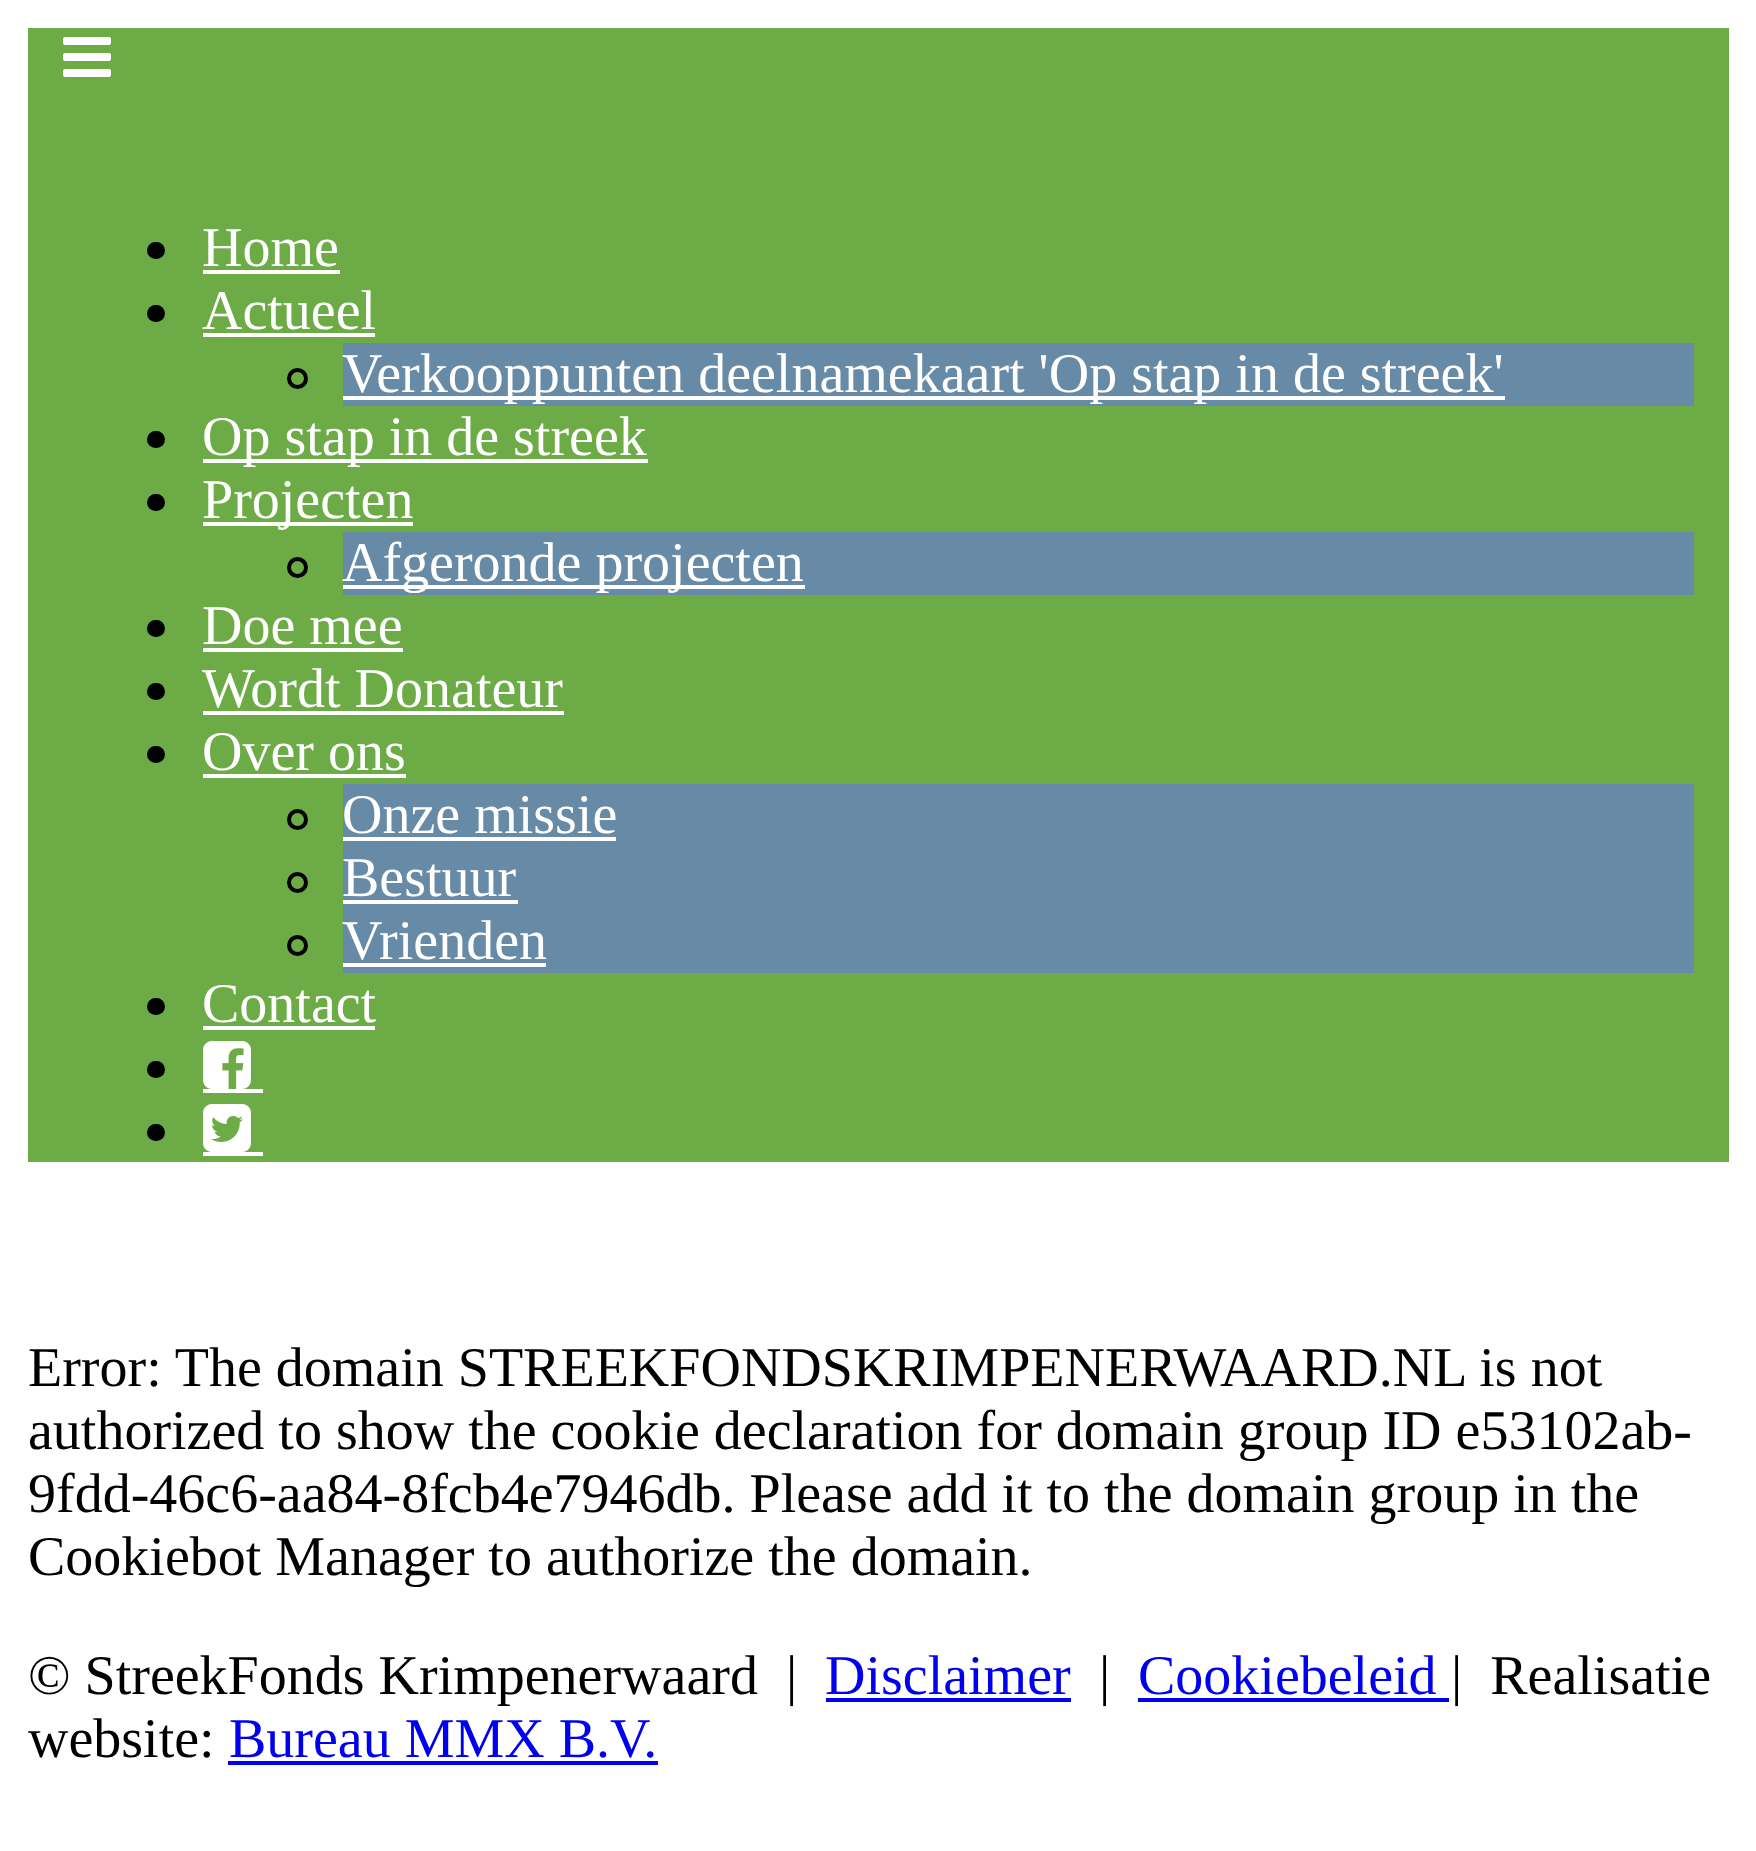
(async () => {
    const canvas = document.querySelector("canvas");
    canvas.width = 1756;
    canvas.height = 1851;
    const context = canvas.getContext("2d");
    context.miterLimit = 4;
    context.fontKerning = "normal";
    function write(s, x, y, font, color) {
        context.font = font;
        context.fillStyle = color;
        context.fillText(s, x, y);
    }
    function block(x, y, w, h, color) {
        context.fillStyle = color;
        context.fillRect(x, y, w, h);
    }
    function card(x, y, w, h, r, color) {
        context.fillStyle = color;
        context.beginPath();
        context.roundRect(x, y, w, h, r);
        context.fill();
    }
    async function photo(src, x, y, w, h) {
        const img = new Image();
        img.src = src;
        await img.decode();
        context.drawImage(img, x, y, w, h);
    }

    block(0, 0, 1756, 1851, "rgb(255, 255, 255)");
    block(28, 28, 1701, 1134, "rgb(108, 171, 70)");
    await photo("media/1.png", 63, 37, 48, 40);
    card(147, 242, 18, 17, 8.5, "rgb(0, 0, 0)");
    write("Home", 202, 266, "56px Liberation Serif", "rgb(255, 255, 255)");
    block(203, 270, 137, 4, "rgb(255, 255, 255)");
    card(147, 305, 18, 17, 8.5, "rgb(0, 0, 0)");
    write("Actueel", 202, 329, "56px Liberation Serif", "rgb(255, 255, 255)");
    block(203, 333, 172, 4, "rgb(255, 255, 255)");
    block(343, 343, 1351, 63, "rgb(103, 139, 166)");
    context.beginPath();
    context.arc(297.5, 378.5, 8.5, 0, Math.PI * 2);
    context.strokeStyle = "rgb(0, 0, 0)";
    context.lineWidth = 4;
    context.stroke();
    block(343, 396, 1162, 4, "rgb(255, 255, 255)");
    write("Verkooppunten deelnamekaart 'Op stap in de streek'", 342, 392, "56px Liberation Serif", "rgb(255, 255, 255)");
    card(147, 431, 18, 17, 8.5, "rgb(0, 0, 0)");
    block(203, 459, 445, 4, "rgb(255, 255, 255)");
    write("Op stap in de streek", 202, 455, "56px Liberation Serif", "rgb(255, 255, 255)");
    card(147, 494, 18, 17, 8.5, "rgb(0, 0, 0)");
    block(203, 522, 210, 4, "rgb(255, 255, 255)");
    write("Projecten", 202, 518, "56px Liberation Serif", "rgb(255, 255, 255)");
    block(343, 532, 1351, 63, "rgb(103, 139, 166)");
    context.beginPath();
    context.arc(297.5, 567.5, 8.5, 0, Math.PI * 2);
    context.stroke();
    block(343, 585, 462, 4, "rgb(255, 255, 255)");
    write("Afgeronde projecten", 342, 581, "56px Liberation Serif", "rgb(255, 255, 255)");
    card(147, 620, 18, 17, 8.5, "rgb(0, 0, 0)");
    write("Doe mee", 202, 644, "56px Liberation Serif", "rgb(255, 255, 255)");
    block(203, 648, 200, 4, "rgb(255, 255, 255)");
    card(147, 683, 18, 17, 8.5, "rgb(0, 0, 0)");
    write("Wordt Donateur", 202, 707, "56px Liberation Serif", "rgb(255, 255, 255)");
    block(203, 711, 361, 4, "rgb(255, 255, 255)");
    card(147, 746, 18, 17, 8.5, "rgb(0, 0, 0)");
    write("Over ons", 202, 770, "56px Liberation Serif", "rgb(255, 255, 255)");
    block(203, 774, 203, 4, "rgb(255, 255, 255)");
    block(343, 784, 1351, 189, "rgb(103, 139, 166)");
    context.beginPath();
    context.arc(297.5, 819.5, 8.5, 0, Math.PI * 2);
    context.stroke();
    write("Onze missie", 342, 833, "56px Liberation Serif", "rgb(255, 255, 255)");
    block(343, 837, 273, 4, "rgb(255, 255, 255)");
    context.beginPath();
    context.arc(297.5, 882.5, 8.5, 0, Math.PI * 2);
    context.stroke();
    write("Bestuur", 342, 896, "56px Liberation Serif", "rgb(255, 255, 255)");
    block(343, 900, 175, 4, "rgb(255, 255, 255)");
    context.beginPath();
    context.arc(297.5, 945.5, 8.5, 0, Math.PI * 2);
    context.stroke();
    write("Vrienden", 342, 959, "56px Liberation Serif", "rgb(255, 255, 255)");
    block(343, 963, 203, 4, "rgb(255, 255, 255)");
    card(147, 998, 18, 17, 8.5, "rgb(0, 0, 0)");
    write("Contact", 202, 1022, "56px Liberation Serif", "rgb(255, 255, 255)");
    block(203, 1026, 172, 4, "rgb(255, 255, 255)");
    card(147, 1061, 18, 17, 8.5, "rgb(0, 0, 0)");
    await photo("media/2.png", 203, 1041, 48, 48);
    block(203, 1089, 60, 4, "rgb(255, 255, 255)");
    card(147, 1124, 18, 17, 8.5, "rgb(0, 0, 0)");
    await photo("media/3.png", 203, 1104, 48, 48);
    block(203, 1152, 60, 4, "rgb(255, 255, 255)");
    write("Error: The domain STREEKFONDSKRIMPENERWAARD.NL is not", 28, 1386, "56px Liberation Serif", "rgb(0, 0, 0)");
    write("authorized to show the cookie declaration for domain group ID e53102ab-", 28, 1449, "56px Liberation Serif", "rgb(0, 0, 0)");
    write("9fdd-46c6-aa84-8fcb4e7946db. Please add it to the domain group in the", 28, 1512, "56px Liberation Serif", "rgb(0, 0, 0)");
    write("Cookiebot Manager to authorize the domain.", 28, 1575, "56px Liberation Serif", "rgb(0, 0, 0)");
    write("© StreekFonds Krimpenerwaard  |", 28, 1694, "56px Liberation Serif", "rgb(0, 0, 0)");
    write("Disclaimer", 825, 1694, "56px Liberation Serif", "rgb(0, 0, 238)");
    block(826, 1698, 245, 4, "rgb(0, 0, 238)");
    write("|", 1099, 1694, "56px Liberation Serif", "rgb(0, 0, 0)");
    write("Cookiebeleid", 1138, 1694, "56px Liberation Serif", "rgb(0, 0, 238)");
    block(1138, 1698, 311, 4, "rgb(0, 0, 238)");
    write("|  Realisatie", 1451, 1694, "56px Liberation Serif", "rgb(0, 0, 0)");
    write("website:", 28, 1757, "56px Liberation Serif", "rgb(0, 0, 0)");
    write("Bureau MMX B.V.", 229, 1757, "56px Liberation Serif", "rgb(0, 0, 238)");
    block(228, 1761, 430, 4, "rgb(0, 0, 238)");
})();
